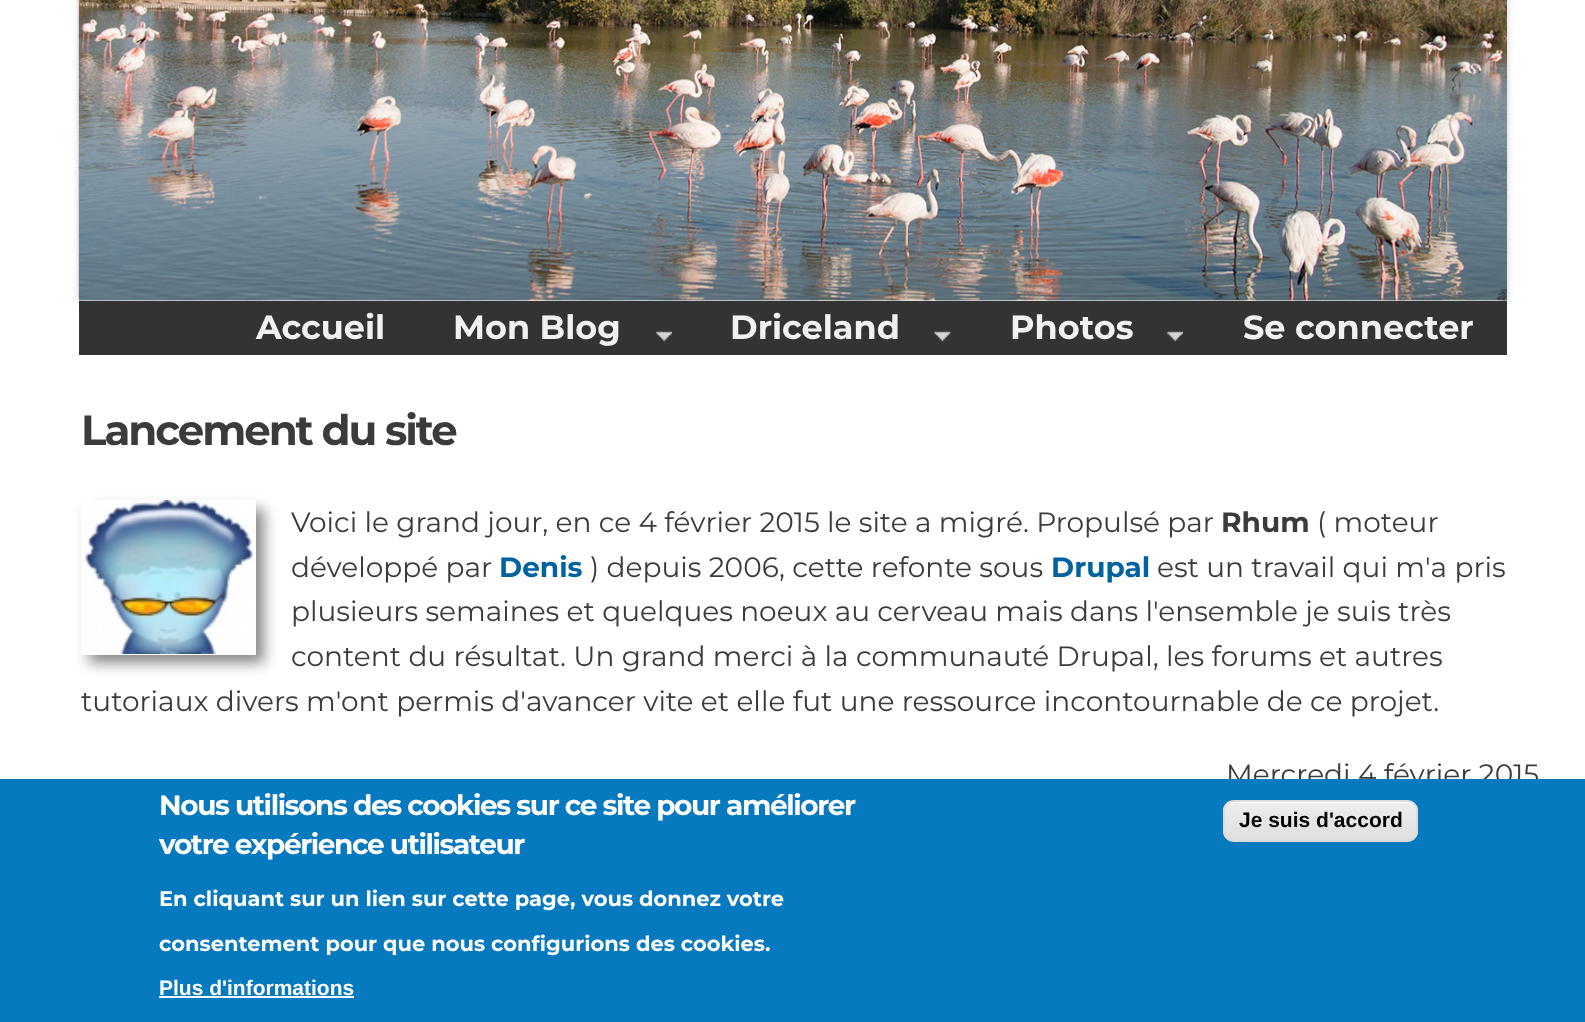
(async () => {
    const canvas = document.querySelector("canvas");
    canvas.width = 1585;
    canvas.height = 1022;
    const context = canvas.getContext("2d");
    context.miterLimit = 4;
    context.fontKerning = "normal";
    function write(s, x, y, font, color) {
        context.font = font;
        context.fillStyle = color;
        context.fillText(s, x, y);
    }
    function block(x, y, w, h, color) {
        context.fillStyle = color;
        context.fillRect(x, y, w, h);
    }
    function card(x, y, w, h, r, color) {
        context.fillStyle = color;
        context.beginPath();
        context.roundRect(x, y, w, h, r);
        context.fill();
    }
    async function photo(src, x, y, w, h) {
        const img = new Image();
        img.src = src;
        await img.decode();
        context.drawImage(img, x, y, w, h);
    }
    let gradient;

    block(0, 0, 1585, 1022, "rgb(255, 255, 255)");
    context.fillStyle = "rgba(0, 0, 0, 0.2)";
    context.filter = "blur(3.5px)";
    context.beginPath();
    context.roundRect(79, -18, 1428, 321, 7);
    context.fill();
    context.filter = "none";
    card(79, -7, 1428, 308, 7, "rgb(255, 255, 255)");
    await photo("media/1.png", 78, 0, 1429, 301);
    block(79, 301, 1428, 54, "rgb(51, 51, 51)");
    write("Accueil", 256, 339, "bold 33.5px Montserrat", "rgb(241, 241, 241)");
    write("Mon Blog", 453, 339, "bold 33.5px Montserrat", "rgb(241, 241, 241)");
    await photo("media/2.png", 655, 331, 17, 11);
    write("Driceland", 730, 339, "bold 33.5px Montserrat", "rgb(241, 241, 241)");
    await photo("media/3.png", 934, 331, 17, 11);
    write("Photos", 1010, 339, "bold 33.5px Montserrat", "rgb(241, 241, 241)");
    await photo("media/2.png", 1166, 331, 17, 11);
    write("Se connecter", 1243, 339, "bold 33.5px Montserrat", "rgb(241, 241, 241)");
    context.letterSpacing = "-2.1px";
    write("Lancement du site", 81, 445, "bold 42px Montserrat", "rgb(59, 59, 59)");
    context.save();
    context.beginPath();
    context.moveTo(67, 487);
    context.lineTo(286, 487);
    context.lineTo(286, 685);
    context.lineTo(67, 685);
    context.closePath();
    context.moveTo(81, 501);
    context.lineTo(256, 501);
    context.lineTo(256, 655);
    context.lineTo(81, 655);
    context.closePath();
    context.clip("evenodd");
    context.fillStyle = "rgb(136, 136, 136)";
    context.filter = "blur(7px)";
    context.beginPath();
    context.rect(89, 509, 175, 154);
    context.fill();
    context.filter = "none";
    context.restore();
    await photo("media/4.png", 83, 500, 173, 154);
    context.letterSpacing = "0px";
    write("Voici le grand jour, en ce 4 février 2015 le site a migré. Propulsé par", 291, 532, "28px Montserrat", "rgb(59, 59, 59)");
    write("Rhum", 1221, 532, "bold 28px Montserrat", "rgb(59, 59, 59)");
    write("( moteur", 1317, 532, "28px Montserrat", "rgb(59, 59, 59)");
    write("développé par", 291, 577, "28px Montserrat", "rgb(59, 59, 59)");
    write("Denis", 499, 577, "bold 28px Montserrat", "rgb(0, 98, 160)");
    write(") depuis 2006, cette refonte sous", 590, 577, "28px Montserrat", "rgb(59, 59, 59)");
    write("Drupal", 1051, 577, "bold 28px Montserrat", "rgb(0, 98, 160)");
    write("est un travail qui m'a pris", 1157, 577, "28px Montserrat", "rgb(59, 59, 59)");
    write("plusieurs semaines et quelques noeux au cerveau mais dans l'ensemble je suis très", 291, 621, "28px Montserrat", "rgb(59, 59, 59)");
    write("content du résultat. Un grand merci à la communauté Drupal, les forums et autres", 291, 666, "28px Montserrat", "rgb(59, 59, 59)");
    write("tutoriaux divers m'ont permis d'avancer vite et elle fut une ressource incontournable de ce projet.", 81, 711, "28px Montserrat", "rgb(59, 59, 59)");
    write("Mercredi 4 février 2015", 1226, 784, "28px Montserrat", "rgb(59, 59, 59)");
    block(0, 779, 1585, 243, "rgb(7, 121, 191)");
    context.letterSpacing = "-1.4px";
    write("Nous utilisons des cookies sur ce site pour améliorer", 159, 815, "bold 28px Montserrat", "rgb(255, 255, 255)");
    write("votre expérience utilisateur", 159, 854, "bold 28px Montserrat", "rgb(255, 255, 255)");
    context.letterSpacing = "0px";
    write("En cliquant sur un lien sur cette page, vous donnez votre", 159, 906, "bold 21px Montserrat", "rgb(255, 255, 255)");
    write("consentement pour que nous configurions des cookies.", 159, 951, "bold 21px Montserrat", "rgb(255, 255, 255)");
    write("Plus d'informations", 159, 995, "bold 21px Liberation Sans", "rgb(255, 255, 255)");
    block(159, 996, 195, 2, "rgb(255, 255, 255)");
    context.save();
    context.beginPath();
    context.roundRect(1223, 800, 195, 42, 11);
    context.clip();
    gradient = context.createLinearGradient(1320, 802, 1320, 840);
    gradient.addColorStop(0.05, "rgb(237, 237, 237)");
    gradient.addColorStop(1, "rgb(223, 223, 223)");
    context.fillStyle = gradient;
    context.fillRect(1223, 802, 195, 38);
    context.restore();
    context.beginPath();
    context.moveTo(1234, 803);
    context.lineTo(1407, 803);
    context.bezierCurveTo(1412, 803, 1416, 807, 1416, 812);
    context.lineTo(1416, 811);
    context.bezierCurveTo(1416, 806, 1412, 802, 1407, 802);
    context.lineTo(1234, 802);
    context.bezierCurveTo(1229, 802, 1225, 806, 1225, 811);
    context.lineTo(1225, 812);
    context.bezierCurveTo(1225, 807, 1229, 803, 1234, 803);
    context.closePath();
    context.fill();
    context.beginPath();
    context.roundRect(1224, 801, 193, 40, 10);
    context.strokeStyle = "rgb(220, 220, 220)";
    context.lineWidth = 2;
    context.stroke();
    write("Je suis d'accord", 1239, 827, "bold 21px Liberation Sans", "rgb(0, 0, 0)");
})();
